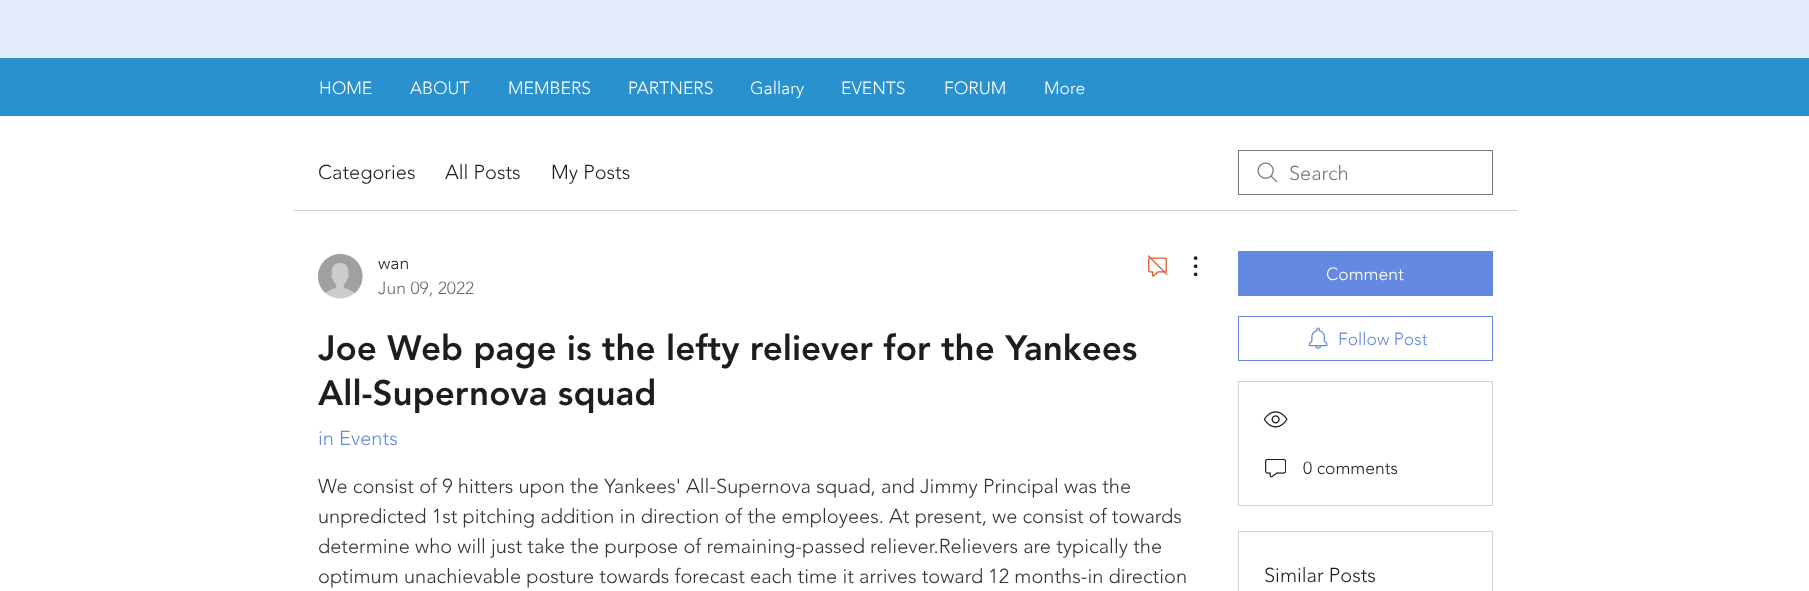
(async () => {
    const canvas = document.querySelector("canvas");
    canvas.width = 1809;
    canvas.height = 591;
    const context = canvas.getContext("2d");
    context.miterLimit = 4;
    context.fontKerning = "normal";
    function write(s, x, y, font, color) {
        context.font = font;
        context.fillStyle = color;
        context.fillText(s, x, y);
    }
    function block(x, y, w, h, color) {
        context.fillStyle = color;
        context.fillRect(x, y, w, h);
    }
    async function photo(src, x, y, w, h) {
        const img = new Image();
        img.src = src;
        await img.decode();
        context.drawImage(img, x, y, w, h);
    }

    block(0, 0, 1809, 591, "rgb(255, 255, 255)");
    block(0, 0, 1809, 58, "rgb(227, 234, 250)");
    block(0, 58, 1809, 58, "rgb(42, 145, 207)");
    write("HOME", 319, 94, "300 17.5px 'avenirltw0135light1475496'", "rgb(255, 255, 255)");
    write("ABOUT", 410, 94, "300 17.5px 'avenirltw0135light1475496'", "rgb(255, 255, 255)");
    write("MEMBERS", 508, 94, "300 17.5px 'avenirltw0135light1475496'", "rgb(255, 255, 255)");
    write("PARTNERS", 628, 94, "300 17.5px 'avenirltw0135light1475496'", "rgb(255, 255, 255)");
    write("Gallary", 750, 94, "300 17.5px 'avenirltw0135light1475496'", "rgb(255, 255, 255)");
    write("EVENTS", 841, 94, "300 17.5px 'avenirltw0135light1475496'", "rgb(255, 255, 255)");
    write("FORUM", 944, 94, "300 17.5px 'avenirltw0135light1475496'", "rgb(255, 255, 255)");
    write("More", 1044, 94, "300 17.5px 'avenirltw0135light1475496'", "rgb(255, 255, 255)");
    block(293, 210, 1225, 1, "rgb(210, 210, 210)");
    write("Categories", 318, 179, "300 20px 'avenirltw0135light1475496'", "rgb(29, 29, 31)");
    write("All Posts", 445, 179, "300 20px 'avenirltw0135light1475496'", "rgb(29, 29, 31)");
    write("My Posts", 551, 179, "300 20px 'avenirltw0135light1475496'", "rgb(29, 29, 31)");
    await photo("media/1.png", 1257, 162, 21, 21);
    context.strokeStyle = "rgb(119, 119, 121)";
    context.strokeRect(1238.5, 150.5, 254, 44);
    write("Search", 1289, 180, "300 20px 'avenirltw0135light1475496'", "rgb(119, 119, 121)");
    await photo("media/2.png", 318, 254, 45, 45);
    write("wan", 378, 269, "300 17.5px 'avenirltw0135light1475496'", "rgb(29, 29, 31)");
    write("Jun 09, 2022", 378, 294, "300 17.5px 'avenirltw0135light1475496'", "rgb(110, 110, 112)");
    await photo("media/3.png", 1148, 255, 20, 22);
    await photo("media/4.png", 1193, 256, 5, 21);
    write("Joe Web page is the lefty reliever for the Yankees", 318, 360, "900 35px 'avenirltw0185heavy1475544'", "rgb(29, 29, 31)");
    write("All-Supernova squad", 318, 405, "900 35px 'avenirltw0185heavy1475544'", "rgb(29, 29, 31)");
    write("in Events", 318, 445, "300 20px 'avenirltw0135light1475496'", "rgb(99, 137, 225)");
    write("We consist of 9 hitters upon the Yankees' All-Supernova squad, and Jimmy Principal was the", 318, 493, "300 20px 'avenirltw0135light1475496'", "rgb(51, 51, 51)");
    write("unpredicted 1st pitching addition in direction of the employees. At present, we consist of towards", 318, 523, "300 20px 'avenirltw0135light1475496'", "rgb(51, 51, 51)");
    write("determine who will just take the purpose of remaining-passed reliever.Relievers are typically the", 318, 553, "300 20px 'avenirltw0135light1475496'", "rgb(51, 51, 51)");
    write("optimum unachievable posture towards forecast each time it arrives toward 12 months-in direction", 318, 583, "300 20px 'avenirltw0135light1475496'", "rgb(51, 51, 51)");
    block(1238, 251, 255, 45, "rgb(99, 137, 225)");
    write("Comment", 1326, 280, "300 17.5px 'avenirltw0135light1475496'", "rgb(255, 255, 255)");
    context.strokeStyle = "rgb(99, 137, 225)";
    context.strokeRect(1238.5, 316.5, 254, 44);
    await photo("media/5.png", 1308, 327, 20, 22);
    write("Follow Post", 1338, 345, "300 17.5px 'avenirltw0135light1475496'", "rgb(99, 137, 225)");
    context.strokeStyle = "rgb(210, 210, 210)";
    context.strokeRect(1238.5, 381.5, 254, 124);
    await photo("media/6.png", 1263, 411, 25, 17);
    await photo("media/7.png", 1265, 459, 21, 19);
    write("0 comments", 1303, 474, "300 17.5px 'avenirltw0135light1475496'", "rgb(29, 29, 31)");
    context.strokeRect(1238.5, 531.5, 254, 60);
    write("Similar Posts", 1264, 582, "300 20px 'avenirltw0135light1475496'", "rgb(29, 29, 31)");
})();
